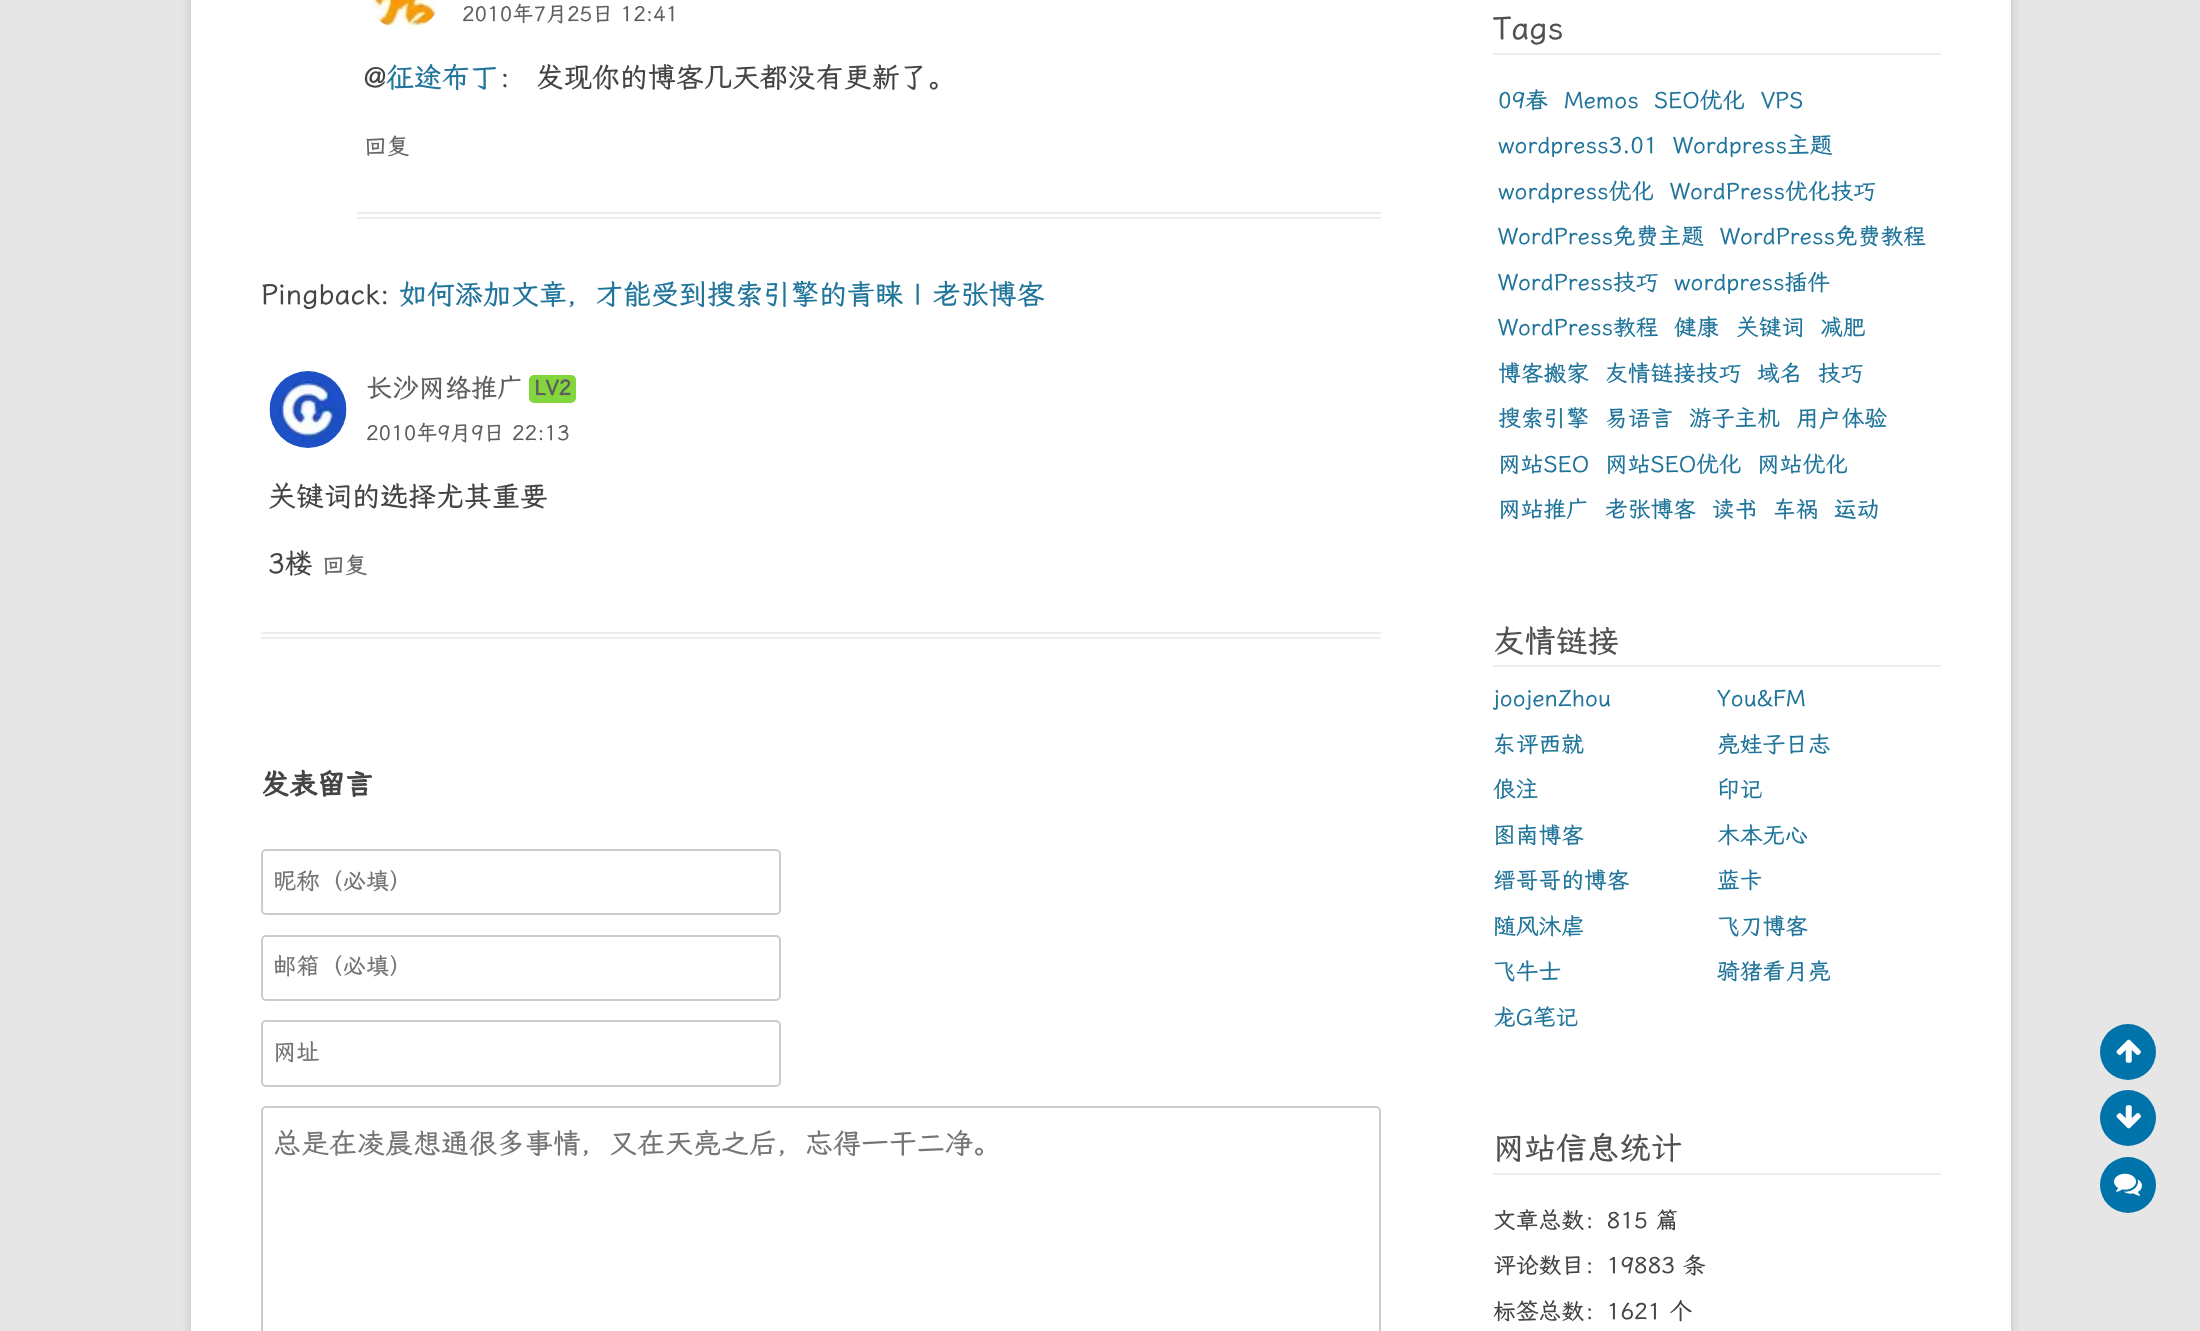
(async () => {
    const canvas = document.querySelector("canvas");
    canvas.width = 2200;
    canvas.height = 1331;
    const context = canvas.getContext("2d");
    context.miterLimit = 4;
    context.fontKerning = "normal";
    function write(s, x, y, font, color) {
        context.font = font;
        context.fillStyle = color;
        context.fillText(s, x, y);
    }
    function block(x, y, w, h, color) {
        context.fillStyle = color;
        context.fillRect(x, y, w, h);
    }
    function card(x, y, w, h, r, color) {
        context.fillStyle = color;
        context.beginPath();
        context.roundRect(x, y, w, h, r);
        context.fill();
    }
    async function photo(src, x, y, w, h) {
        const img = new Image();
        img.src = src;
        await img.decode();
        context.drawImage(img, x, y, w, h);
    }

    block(0, 0, 2200, 1331, "rgb(230, 230, 230)");
    context.fillStyle = "rgba(100, 100, 100, 0.3)";
    context.filter = "blur(5px)";
    context.beginPath();
    context.rect(191, -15, 1820, 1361);
    context.fill();
    context.filter = "none";
    block(191, 0, 1820, 1331, "rgb(255, 255, 255)");
    block(357, 212, 1024, 2, "rgb(237, 237, 237)");
    block(357, 217, 1024, 2, "rgb(237, 237, 237)");
    await photo("media/1.png", 372, 0, 65, 29);
    write("2010年7月25日 12:41", 462, 21, "21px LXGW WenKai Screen", "rgb(94, 94, 94)");
    write("@", 364, 87, "28px LXGW WenKai Screen", "rgb(68, 68, 68)");
    write("征途布丁", 386, 87, "28px LXGW WenKai Screen", "rgb(33, 117, 155)");
    write("： 发现你的博客几天都没有更新了。", 498, 87, "28px LXGW WenKai Screen", "rgb(68, 68, 68)");
    write("回复", 364, 154, "22.75px LXGW WenKai Screen", "rgb(104, 104, 104)");
    write("Pingback:", 261, 304, "28px LXGW WenKai Screen", "rgb(68, 68, 68)");
    write("如何添加文章，才能受到搜索引擎的青睐 | 老张博客", 399, 304, "28px LXGW WenKai Screen", "rgb(33, 117, 155)");
    block(261, 632, 1120, 2, "rgb(237, 237, 237)");
    block(261, 637, 1120, 2, "rgb(237, 237, 237)");
    await photo("media/2.png", 269, 371, 78, 77);
    write("长沙网络推广", 366, 397, "26.25px LXGW WenKai Screen", "rgb(94, 94, 94)");
    card(529, 375, 47, 28, 5, "rgb(131, 213, 62)");
    write("LV2", 534, 395, "bold 21px LXGW WenKai Screen", "rgb(94, 94, 94)");
    write("2010年9月9日 22:13", 366, 440, "21px LXGW WenKai Screen", "rgb(94, 94, 94)");
    write("关键词的选择尤其重要", 268, 506, "28px LXGW WenKai Screen", "rgb(68, 68, 68)");
    write("3楼", 268, 573, "28px LXGW WenKai Screen", "rgb(68, 68, 68)");
    write("回复", 322, 573, "22.75px LXGW WenKai Screen", "rgb(104, 104, 104)");
    write("发表留言", 261, 794, "bold 28px LXGW WenKai Screen", "rgb(68, 68, 68)");
    context.beginPath();
    context.roundRect(262, 850, 518, 64, 4);
    context.strokeStyle = "rgb(204, 204, 204)";
    context.lineWidth = 2;
    context.stroke();
    write("昵称（必填）", 273, 889, "23.25px LXGW WenKai Screen", "rgb(117, 117, 117)");
    context.beginPath();
    context.roundRect(262, 936, 518, 64, 4);
    context.stroke();
    write("邮箱（必填）", 273, 974, "23.25px LXGW WenKai Screen", "rgb(117, 117, 117)");
    context.beginPath();
    context.roundRect(262, 1021, 518, 65, 4);
    context.stroke();
    write("网址", 273, 1060, "23.25px LXGW WenKai Screen", "rgb(117, 117, 117)");
    context.beginPath();
    context.roundRect(262, 1107, 1118, 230, 4);
    context.stroke();
    write("总是在凌晨想通很多事情，又在天亮之后，忘得一干二净。", 273, 1153, "28px LXGW WenKai Screen", "rgb(117, 117, 117)");
    block(1493, 53, 448, 2, "rgb(237, 237, 237)");
    write("Tags", 1493, 39, "31.5px LXGW WenKai Screen", "rgb(81, 81, 81)");
    write("09春", 1498, 108, "22.75px LXGW WenKai Screen", "rgb(33, 117, 155)");
    write("Memos", 1564, 108, "22.75px LXGW WenKai Screen", "rgb(33, 117, 155)");
    write("SEO优化", 1654, 108, "22.75px LXGW WenKai Screen", "rgb(33, 117, 155)");
    write("VPS", 1761, 108, "22.75px LXGW WenKai Screen", "rgb(33, 117, 155)");
    write("wordpress3.01", 1498, 153, "22.75px LXGW WenKai Screen", "rgb(33, 117, 155)");
    write("Wordpress主题", 1673, 153, "22.75px LXGW WenKai Screen", "rgb(33, 117, 155)");
    write("wordpress优化", 1498, 199, "22.75px LXGW WenKai Screen", "rgb(33, 117, 155)");
    write("WordPress优化技巧", 1670, 199, "22.75px LXGW WenKai Screen", "rgb(33, 117, 155)");
    write("WordPress免费主题", 1498, 244, "22.75px LXGW WenKai Screen", "rgb(33, 117, 155)");
    write("WordPress免费教程", 1720, 244, "22.75px LXGW WenKai Screen", "rgb(33, 117, 155)");
    write("WordPress技巧", 1498, 290, "22.75px LXGW WenKai Screen", "rgb(33, 117, 155)");
    write("wordpress插件", 1674, 290, "22.75px LXGW WenKai Screen", "rgb(33, 117, 155)");
    write("WordPress教程", 1498, 335, "22.75px LXGW WenKai Screen", "rgb(33, 117, 155)");
    write("健康", 1674, 335, "22.75px LXGW WenKai Screen", "rgb(33, 117, 155)");
    write("关键词", 1736, 335, "22.75px LXGW WenKai Screen", "rgb(33, 117, 155)");
    write("减肥", 1820, 335, "22.75px LXGW WenKai Screen", "rgb(33, 117, 155)");
    write("博客搬家", 1498, 381, "22.75px LXGW WenKai Screen", "rgb(33, 117, 155)");
    write("友情链接技巧", 1605, 381, "22.75px LXGW WenKai Screen", "rgb(33, 117, 155)");
    write("域名", 1757, 381, "22.75px LXGW WenKai Screen", "rgb(33, 117, 155)");
    write("技巧", 1818, 381, "22.75px LXGW WenKai Screen", "rgb(33, 117, 155)");
    write("搜索引擎", 1498, 426, "22.75px LXGW WenKai Screen", "rgb(33, 117, 155)");
    write("易语言", 1605, 426, "22.75px LXGW WenKai Screen", "rgb(33, 117, 155)");
    write("游子主机", 1689, 426, "22.75px LXGW WenKai Screen", "rgb(33, 117, 155)");
    write("用户体验", 1796, 426, "22.75px LXGW WenKai Screen", "rgb(33, 117, 155)");
    write("网站SEO", 1498, 472, "22.75px LXGW WenKai Screen", "rgb(33, 117, 155)");
    write("网站SEO优化", 1605, 472, "22.75px LXGW WenKai Screen", "rgb(33, 117, 155)");
    write("网站优化", 1757, 472, "22.75px LXGW WenKai Screen", "rgb(33, 117, 155)");
    write("网站推广", 1498, 517, "22.75px LXGW WenKai Screen", "rgb(33, 117, 155)");
    write("老张博客", 1605, 517, "22.75px LXGW WenKai Screen", "rgb(33, 117, 155)");
    write("读书", 1712, 517, "22.75px LXGW WenKai Screen", "rgb(33, 117, 155)");
    write("车祸", 1773, 517, "22.75px LXGW WenKai Screen", "rgb(33, 117, 155)");
    write("运动", 1834, 517, "22.75px LXGW WenKai Screen", "rgb(33, 117, 155)");
    block(1493, 665, 448, 2, "rgb(237, 237, 237)");
    write("友情链接", 1493, 652, "31.5px LXGW WenKai Screen", "rgb(81, 81, 81)");
    write("joojenZhou", 1493, 706, "22.75px LXGW WenKai Screen", "rgb(33, 117, 155)");
    write("You&FM", 1717, 706, "22.75px LXGW WenKai Screen", "rgb(33, 117, 155)");
    write("东评西就", 1493, 752, "22.75px LXGW WenKai Screen", "rgb(33, 117, 155)");
    write("亮娃子日志", 1717, 752, "22.75px LXGW WenKai Screen", "rgb(33, 117, 155)");
    write("俍注", 1493, 797, "22.75px LXGW WenKai Screen", "rgb(33, 117, 155)");
    write("印记", 1717, 797, "22.75px LXGW WenKai Screen", "rgb(33, 117, 155)");
    write("图南博客", 1493, 843, "22.75px LXGW WenKai Screen", "rgb(33, 117, 155)");
    write("木本无心", 1717, 843, "22.75px LXGW WenKai Screen", "rgb(33, 117, 155)");
    write("缙哥哥的博客", 1493, 888, "22.75px LXGW WenKai Screen", "rgb(33, 117, 155)");
    write("蓝卡", 1717, 888, "22.75px LXGW WenKai Screen", "rgb(33, 117, 155)");
    write("随风沐虐", 1493, 934, "22.75px LXGW WenKai Screen", "rgb(33, 117, 155)");
    write("飞刀博客", 1717, 934, "22.75px LXGW WenKai Screen", "rgb(33, 117, 155)");
    write("飞牛士", 1493, 979, "22.75px LXGW WenKai Screen", "rgb(33, 117, 155)");
    write("骑猪看月亮", 1717, 979, "22.75px LXGW WenKai Screen", "rgb(33, 117, 155)");
    write("龙G笔记", 1493, 1025, "22.75px LXGW WenKai Screen", "rgb(33, 117, 155)");
    block(1493, 1173, 448, 2, "rgb(237, 237, 237)");
    write("网站信息统计", 1493, 1159, "31.5px LXGW WenKai Screen", "rgb(81, 81, 81)");
    write("文章总数：815 篇", 1493, 1228, "22.75px LXGW WenKai Screen", "rgb(68, 68, 68)");
    write("评论数目：19883 条", 1493, 1273, "22.75px LXGW WenKai Screen", "rgb(68, 68, 68)");
    write("标签总数：1621 个", 1493, 1319, "22.75px LXGW WenKai Screen", "rgb(68, 68, 68)");
    context.fillStyle = "rgb(0, 115, 170)";
    context.beginPath();
    context.arc(2128, 1052, 28, 0, Math.PI * 2);
    context.fill();
    await photo("media/3.png", 2116, 1039, 25, 24);
    context.beginPath();
    context.arc(2128, 1118, 28, 0, Math.PI * 2);
    context.fill();
    await photo("media/4.png", 2116, 1105, 25, 24);
    context.beginPath();
    context.arc(2128, 1185, 28, 0, Math.PI * 2);
    context.fill();
    await photo("media/5.png", 2114, 1173, 28, 23);
})();
